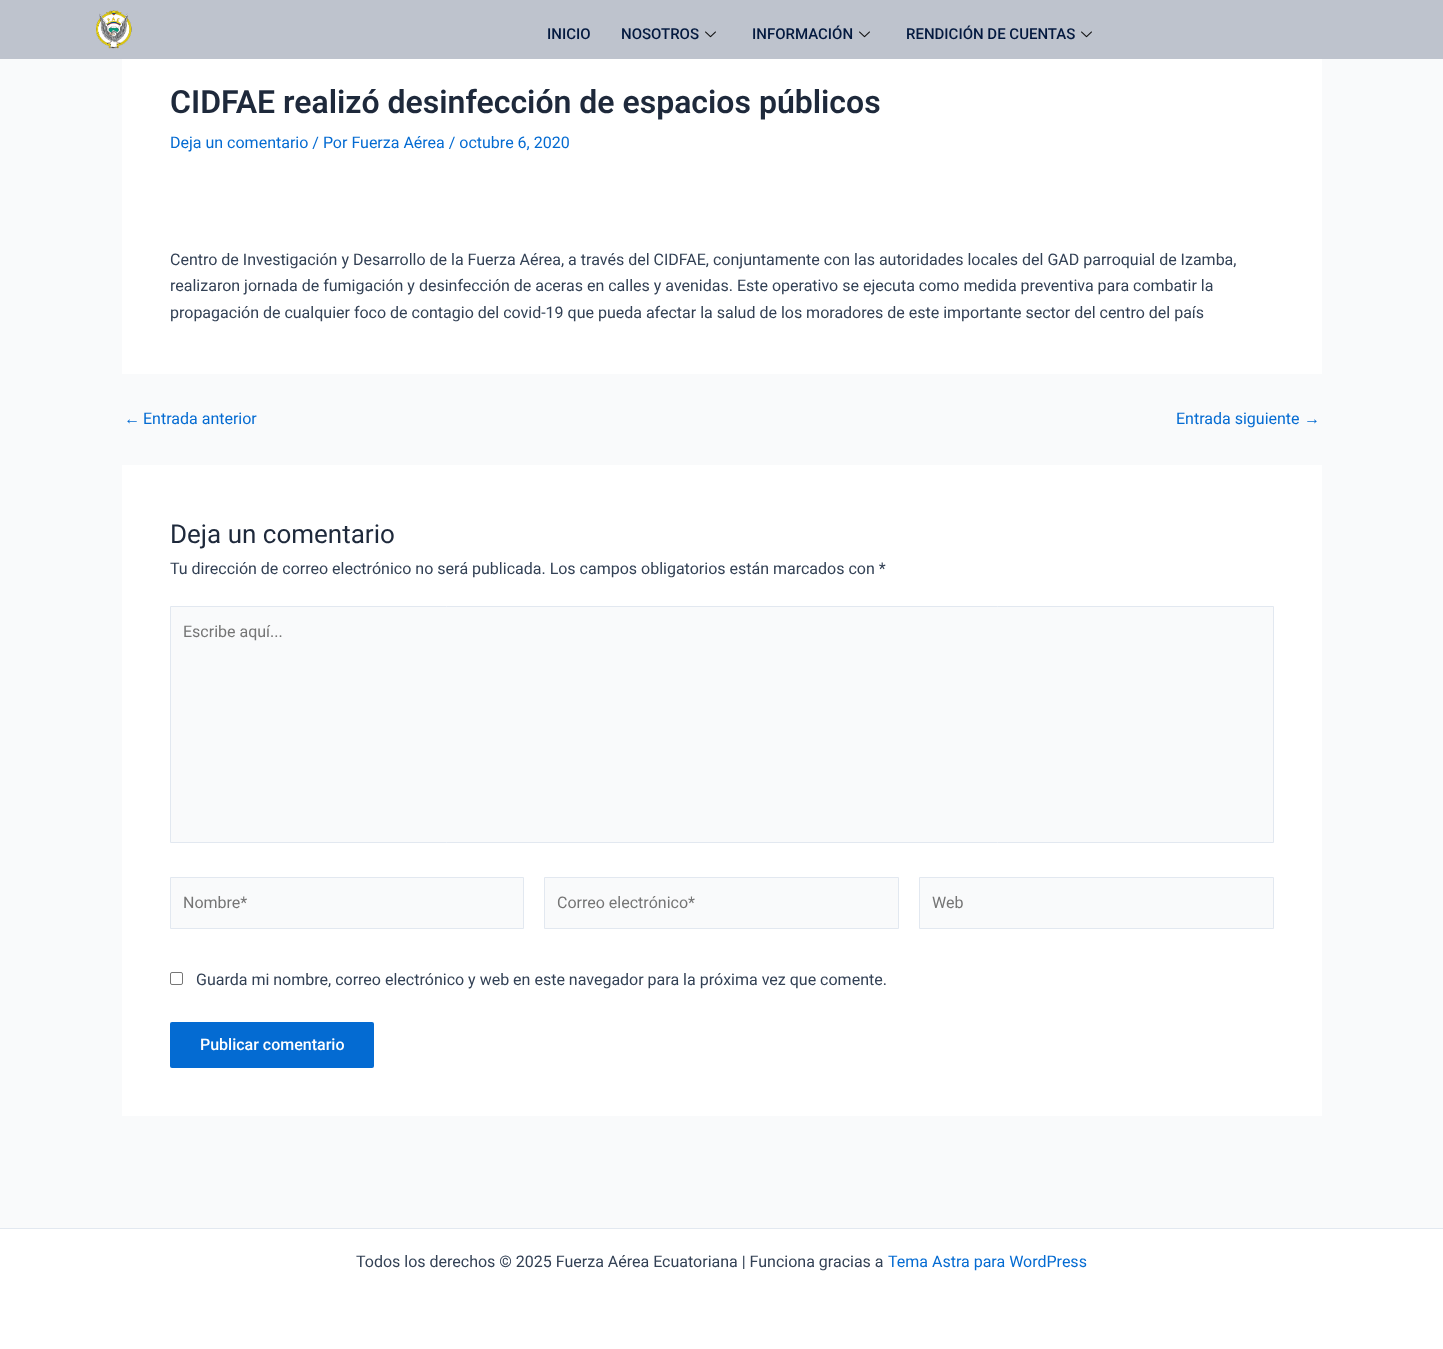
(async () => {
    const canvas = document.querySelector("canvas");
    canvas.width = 1443;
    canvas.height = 1349;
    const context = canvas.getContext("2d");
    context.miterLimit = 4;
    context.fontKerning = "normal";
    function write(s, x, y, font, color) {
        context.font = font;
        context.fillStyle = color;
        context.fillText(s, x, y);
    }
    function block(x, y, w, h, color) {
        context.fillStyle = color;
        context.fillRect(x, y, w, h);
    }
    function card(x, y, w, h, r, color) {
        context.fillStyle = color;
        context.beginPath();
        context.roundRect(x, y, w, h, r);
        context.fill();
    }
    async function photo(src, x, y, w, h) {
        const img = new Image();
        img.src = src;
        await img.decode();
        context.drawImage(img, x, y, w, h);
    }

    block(0, 0, 1443, 1349, "rgb(249, 250, 251)");
    block(0, 0, 1443, 59, "rgb(190, 195, 205)");
    await photo("media/1.png", 96, 10, 36, 39);
    write("INICIO", 547, 39, "500 15px Roboto", "rgb(3, 25, 63)");
    write("NOSOTROS", 621, 39, "500 15px Roboto", "rgb(3, 25, 63)");
    await photo("media/2.png", 705, 31, 11, 7);
    write("INFORMACIÓN", 752, 39, "500 15px Roboto", "rgb(3, 25, 63)");
    await photo("media/2.png", 859, 31, 11, 7);
    write("RENDICIÓN DE CUENTAS", 906, 39, "500 15px Roboto", "rgb(3, 25, 63)");
    await photo("media/2.png", 1081, 31, 11, 7);
    block(122, 59, 1200, 315, "rgb(255, 255, 255)");
    write("CIDFAE realizó desinfección de espacios públicos", 170, 113, "600 32px Roboto", "rgb(30, 41, 59)");
    write("Deja un comentario / Por Fuerza Aérea / octubre 6, 2020", 170, 148, "16px Roboto", "rgb(4, 107, 210)");
    write("Centro de Investigación y Desarrollo de la Fuerza Aérea, a través del CIDFAE, conjuntamente con las autoridades locales del GAD parroquial de Izamba,", 170, 265, "16px Roboto", "rgb(51, 65, 85)");
    write("realizaron jornada de fumigación y desinfección de aceras en calles y avenidas. Este operativo se ejecuta como medida preventiva para combatir la", 170, 291, "16px Roboto", "rgb(51, 65, 85)");
    write("propagación de cualquier foco de contagio del covid-19 que pueda afectar la salud de los moradores de este importante sector del centro del país", 170, 318, "16px Roboto", "rgb(51, 65, 85)");
    write("←", 124, 424, "16px Liberation Sans", "rgb(4, 107, 210)");
    write("Entrada anterior", 143, 424, "16px Roboto", "rgb(4, 107, 210)");
    write("Entrada siguiente", 1176, 424, "16px Roboto", "rgb(4, 107, 210)");
    write("→", 1304, 424, "16px Liberation Sans", "rgb(4, 107, 210)");
    block(122, 465, 1200, 651, "rgb(255, 255, 255)");
    write("Deja un comentario", 170, 543, "26px Roboto", "rgb(30, 41, 59)");
    write("Tu dirección de correo electrónico no será publicada. Los campos obligatorios están marcados con *", 170, 574, "16px Roboto", "rgb(51, 65, 85)");
    context.fillStyle = "rgb(249, 250, 251)";
    context.beginPath();
    context.rect(170.5, 606.5, 1103, 236);
    context.fill();
    context.strokeStyle = "rgb(226, 232, 240)";
    context.stroke();
    write("Escribe aquí...", 183, 637, "16px Roboto", "rgb(117, 117, 117)");
    context.fillStyle = "rgb(249, 250, 251)";
    context.beginPath();
    context.rect(170.5, 877.5, 353, 51);
    context.fill();
    context.stroke();
    write("Nombre*", 183, 908, "16px Roboto", "rgb(117, 117, 117)");
    context.fillStyle = "rgb(249, 250, 251)";
    context.beginPath();
    context.rect(544.5, 877.5, 354, 51);
    context.fill();
    context.stroke();
    write("Correo electrónico*", 557, 908, "16px Roboto", "rgb(117, 117, 117)");
    context.fillStyle = "rgb(249, 250, 251)";
    context.beginPath();
    context.rect(919.5, 877.5, 354, 51);
    context.fill();
    context.stroke();
    write("Web", 932, 908, "16px Roboto", "rgb(117, 117, 117)");
    context.beginPath();
    context.roundRect(170.5, 972.5, 12, 12, 1.5);
    context.strokeStyle = "rgb(118, 118, 118)";
    context.stroke();
    write("Guarda mi nombre, correo electrónico y web en este navegador para la próxima vez que comente.", 196, 985, "16px Roboto", "rgb(51, 65, 85)");
    card(170, 1022, 204, 46, 2, "rgb(4, 107, 210)");
    write("Publicar comentario", 200, 1050, "500 16px Roboto", "rgb(255, 255, 255)");
    block(0, 1229, 1443, 120, "rgb(255, 255, 255)");
    block(0, 1228, 1443, 1, "rgb(226, 232, 240)");
    write("Todos los derechos © 2025 Fuerza Aérea Ecuatoriana | Funciona gracias a", 356, 1267, "16px Roboto", "rgb(51, 65, 85)");
    write("Tema Astra para WordPress", 888, 1267, "16px Roboto", "rgb(4, 107, 210)");
})();
